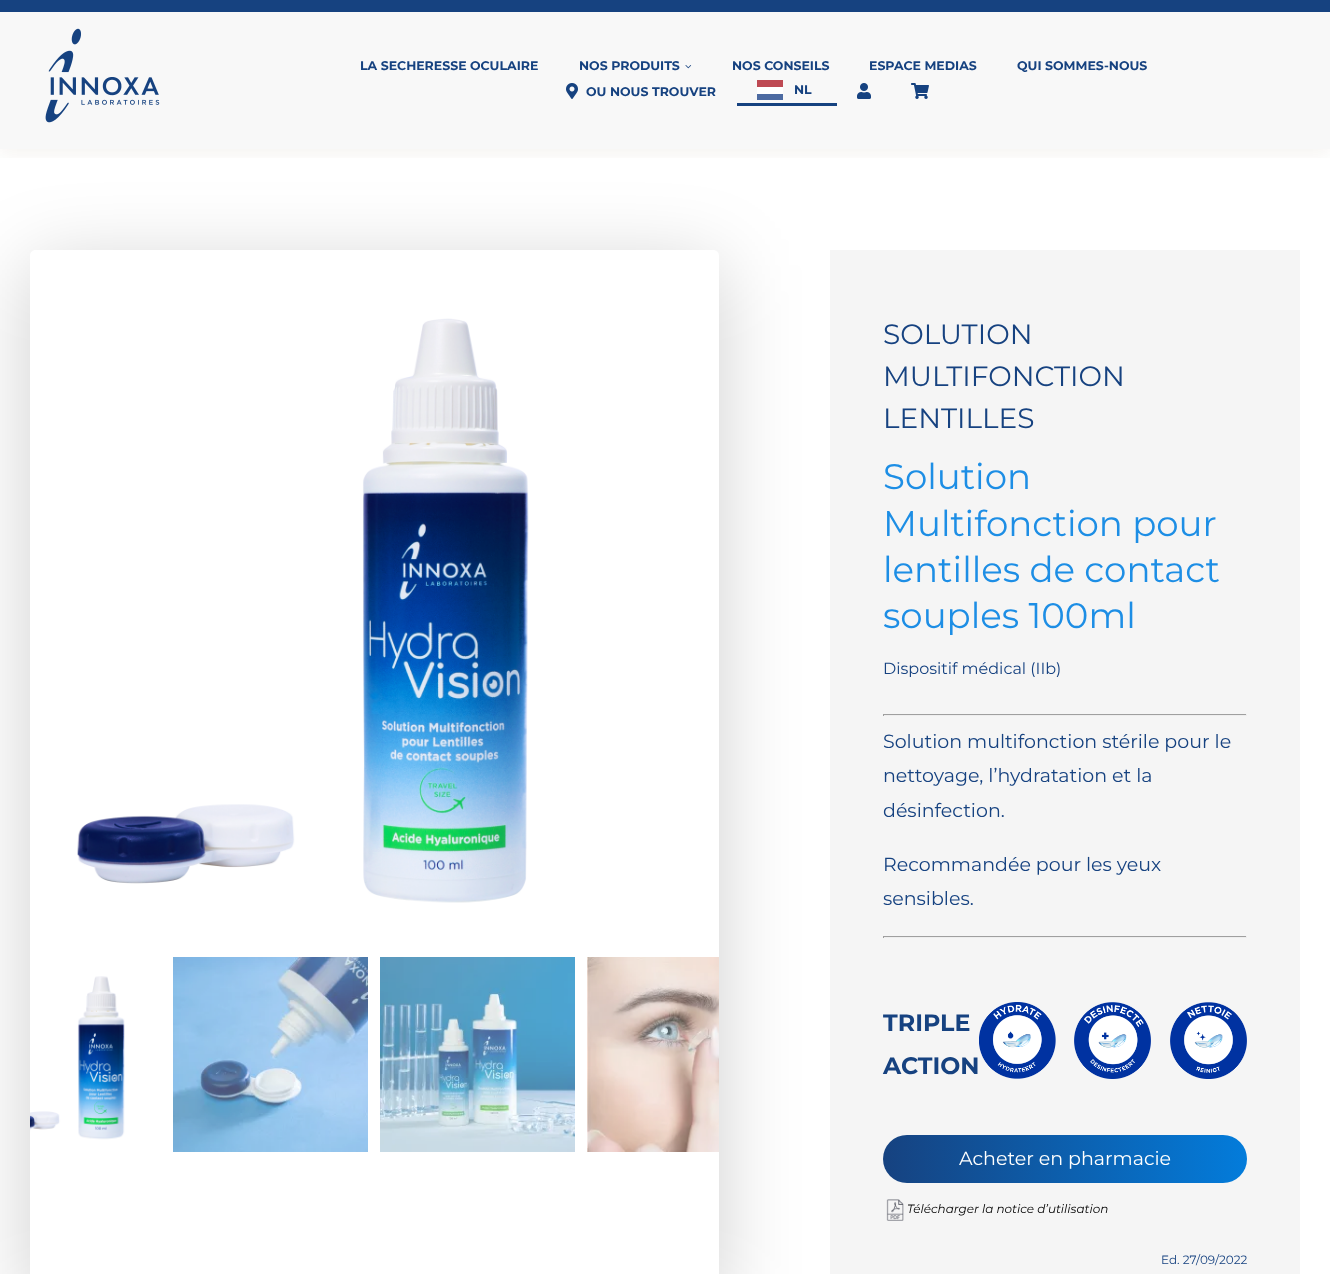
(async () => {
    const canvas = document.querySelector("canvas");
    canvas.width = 1330;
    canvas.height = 1274;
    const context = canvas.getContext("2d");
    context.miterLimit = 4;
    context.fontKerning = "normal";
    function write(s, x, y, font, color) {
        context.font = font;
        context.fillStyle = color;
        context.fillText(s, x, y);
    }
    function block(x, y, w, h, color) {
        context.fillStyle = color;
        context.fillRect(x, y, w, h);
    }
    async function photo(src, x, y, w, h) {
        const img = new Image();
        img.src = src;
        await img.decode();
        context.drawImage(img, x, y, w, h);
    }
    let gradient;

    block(0, 0, 1330, 1274, "rgb(248, 248, 248)");
    block(0, 0, 1330, 12, "rgb(22, 66, 128)");
    block(0, 149, 1330, 1125, "rgb(255, 255, 255)");
    context.save();
    context.beginPath();
    context.rect(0, 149, 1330, 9);
    context.clip();
    context.fillStyle = "rgba(91, 45, 0, 0.06)";
    context.filter = "blur(10px)";
    context.beginPath();
    context.rect(0, 17, 1330, 137);
    context.fill();
    context.filter = "none";
    context.restore();
    await photo("media/1.png", 45, 28, 115, 95);
    write("LA SECHERESSE OCULAIRE", 360, 70, "bold 12.5px Montserrat", "rgb(22, 66, 128)");
    write("NOS PRODUITS", 579, 70, "bold 12.5px Montserrat", "rgb(22, 66, 128)");
    await photo("media/2.png", 685, 65, 7, 4);
    write("NOS CONSEILS", 732, 70, "bold 12.5px Montserrat", "rgb(22, 66, 128)");
    write("ESPACE MEDIAS", 869, 70, "bold 12.5px Montserrat", "rgb(22, 66, 128)");
    write("QUI SOMMES-NOUS", 1017, 70, "bold 12.5px Montserrat", "rgb(22, 66, 128)");
    await photo("media/3.png", 566, 83, 12, 16);
    write("OU NOUS TROUVER", 586, 96, "bold 12.5px Montserrat", "rgb(22, 66, 128)");
    block(757, 80, 26, 7, "rgb(190, 73, 83)");
    block(757, 87, 26, 7, "rgb(255, 255, 255)");
    block(757, 94, 26, 6, "rgb(77, 107, 162)");
    write("NL", 794, 94, "bold 12.5px Montserrat", "rgb(22, 66, 128)");
    block(737, 103, 100, 3, "rgb(22, 66, 128)");
    await photo("media/4.png", 857, 83, 14, 16);
    await photo("media/5.png", 911, 83, 18, 16);
    context.save();
    context.beginPath();
    context.moveTo(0, 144);
    context.lineTo(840, 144);
    context.lineTo(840, 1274);
    context.lineTo(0, 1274);
    context.closePath();
    context.moveTo(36, 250);
    context.lineTo(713, 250);
    context.bezierCurveTo(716.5, 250, 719, 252.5, 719, 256);
    context.lineTo(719, 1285);
    context.bezierCurveTo(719, 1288.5, 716.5, 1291, 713, 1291);
    context.lineTo(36, 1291);
    context.bezierCurveTo(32.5, 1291, 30, 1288.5, 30, 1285);
    context.lineTo(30, 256);
    context.bezierCurveTo(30, 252.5, 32.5, 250, 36, 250);
    context.closePath();
    context.clip("evenodd");
    context.fillStyle = "rgba(0, 0, 0, 0.19)";
    context.filter = "blur(40px)";
    context.beginPath();
    context.roundRect(30, 265, 689, 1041, 6);
    context.fill();
    context.filter = "none";
    context.restore();
    await photo("media/6.png", 77, 318, 452, 585);
    await photo("media/7.png", 30, 976, 95, 164);
    await photo("media/8.png", 173, 957, 195, 195);
    await photo("media/9.png", 380, 957, 195, 195);
    await photo("media/10.png", 587, 957, 132, 195);
    block(830, 250, 470, 1024, "rgb(245, 245, 245)");
    write("SOLUTION", 883, 344, "28px Montserrat", "rgb(22, 66, 128)");
    write("MULTIFONCTION", 883, 386, "28px Montserrat", "rgb(22, 66, 128)");
    write("LENTILLES", 883, 428, "28px Montserrat", "rgb(22, 66, 128)");
    write("Solution", 883, 489, "35.6px Montserrat", "rgb(29, 142, 229)");
    write("Multifonction pour", 883, 536, "35.6px Montserrat", "rgb(29, 142, 229)");
    write("lentilles de contact", 883, 582, "35.6px Montserrat", "rgb(29, 142, 229)");
    write("souples 100ml", 883, 628, "35.6px Montserrat", "rgb(29, 142, 229)");
    write("Dispositif médical (IIb)", 883, 674, "16px Montserrat", "rgb(22, 66, 128)");
    block(883, 714, 364, 1, "rgb(159, 159, 159)");
    block(1246, 714, 1, 2, "rgb(238, 238, 238)");
    block(883, 715, 364, 1, "rgb(238, 238, 238)");
    block(883, 714, 1, 2, "rgb(159, 159, 159)");
    write("Solution multifonction stérile pour le", 883, 748, "19px Montserrat", "rgb(22, 66, 128)");
    write("nettoyage, l’hydratation et la", 883, 782, "19px Montserrat", "rgb(22, 66, 128)");
    write("désinfection.", 883, 817, "19px Montserrat", "rgb(22, 66, 128)");
    write("Recommandée pour les yeux", 883, 871, "19px Montserrat", "rgb(22, 66, 128)");
    write("sensibles.", 883, 905, "19px Montserrat", "rgb(22, 66, 128)");
    block(883, 936, 364, 1, "rgb(159, 159, 159)");
    block(1246, 936, 1, 2, "rgb(238, 238, 238)");
    block(883, 937, 364, 1, "rgb(238, 238, 238)");
    block(883, 936, 1, 2, "rgb(159, 159, 159)");
    write("TRIPLE", 883, 1031, "bold 23.75px Montserrat", "rgb(22, 66, 128)");
    write("ACTION", 883, 1074, "bold 23.75px Montserrat", "rgb(22, 66, 128)");
    await photo("media/11.png", 979, 1002, 77, 77);
    await photo("media/12.png", 1074, 1002, 77, 77);
    await photo("media/13.png", 1170, 1002, 77, 77);
    gradient = context.createLinearGradient(1247, 1159, 883, 1159);
    gradient.addColorStop(0, "rgb(3, 124, 219)");
    gradient.addColorStop(1, "rgb(22, 66, 128)");
    context.fillStyle = gradient;
    context.beginPath();
    context.roundRect(883, 1135, 364, 48, 24);
    context.fill();
    write("Acheter en pharmacie", 959, 1165, "19px Montserrat", "rgb(255, 255, 255)");
    await photo("media/14.png", 886, 1199, 18, 22);
    write("Télécharger la notice d’utilisation", 907, 1213, "italic 100 12px Montserrat", "rgb(0, 0, 0)");
    write("Ed. 27/09/2022", 1161, 1264, "12px Montserrat", "rgb(22, 66, 128)");
})();
